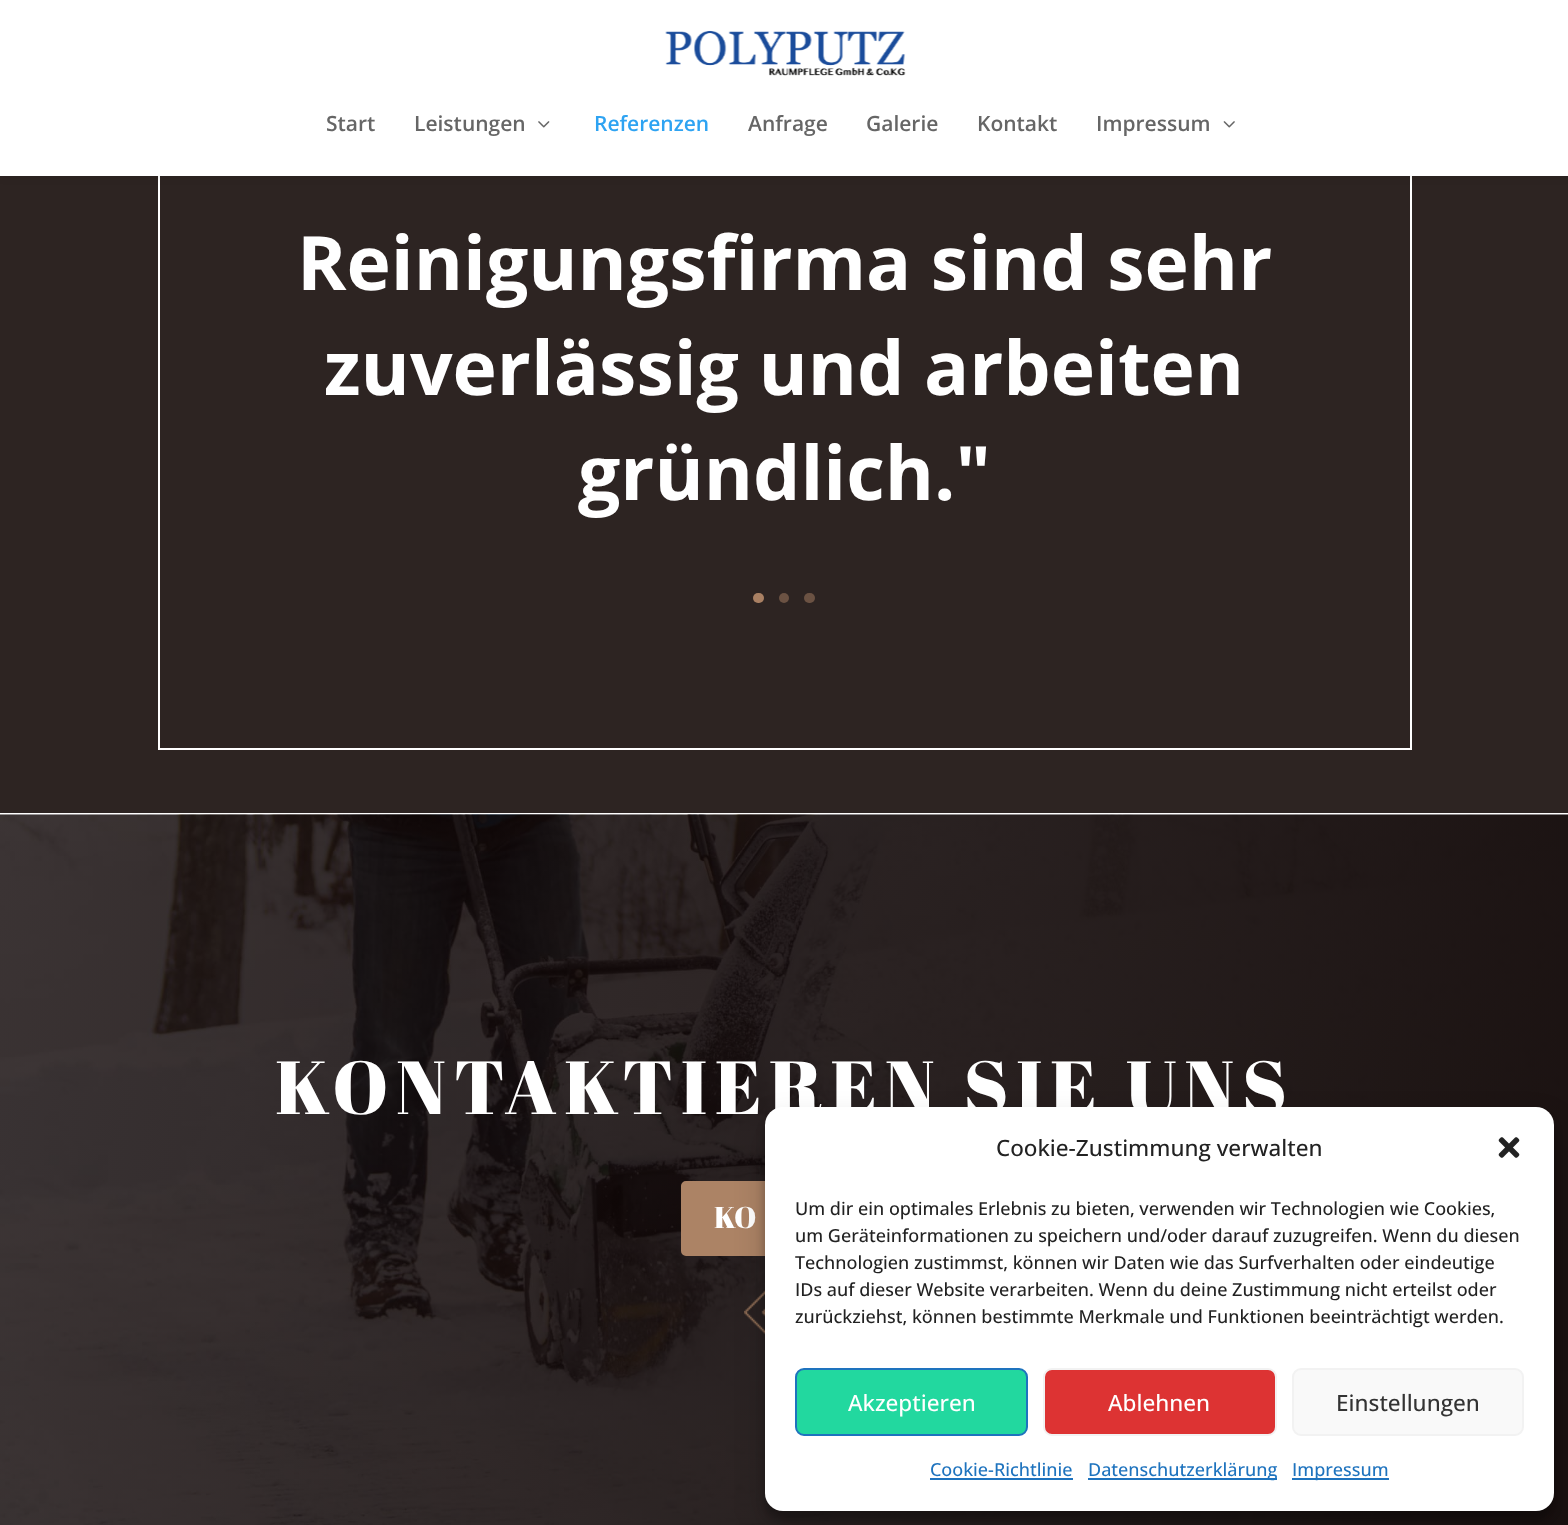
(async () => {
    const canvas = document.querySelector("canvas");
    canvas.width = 1568;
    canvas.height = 1525;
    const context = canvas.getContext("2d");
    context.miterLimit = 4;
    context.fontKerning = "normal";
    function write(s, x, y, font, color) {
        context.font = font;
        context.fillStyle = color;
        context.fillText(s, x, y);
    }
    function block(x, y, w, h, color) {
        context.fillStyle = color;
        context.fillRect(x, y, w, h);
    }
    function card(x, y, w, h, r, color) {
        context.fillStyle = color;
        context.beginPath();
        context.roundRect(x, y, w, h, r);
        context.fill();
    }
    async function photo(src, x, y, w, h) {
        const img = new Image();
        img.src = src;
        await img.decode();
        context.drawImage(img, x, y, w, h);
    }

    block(0, 0, 1568, 1525, "rgb(255, 255, 255)");
    block(0, 176, 1568, 637, "rgb(45, 36, 34)");
    context.strokeStyle = "rgb(255, 255, 255)";
    context.lineWidth = 2;
    context.strokeRect(159, -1, 1252, 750);
    context.fillStyle = "rgba(0, 0, 0, 0.1)";
    context.filter = "blur(5px)";
    context.beginPath();
    context.rect(0, 0, 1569, 176);
    context.fill();
    context.filter = "none";
    block(0, 0, 1568, 176, "rgb(255, 255, 255)");
    await photo("media/1.png", 665, 30, 241, 46);
    write("Start", 326, 131, "600 21px Open Sans", "rgb(102, 102, 102)");
    write("Leistungen", 414, 131, "600 21px Open Sans", "rgb(102, 102, 102)");
    await photo("media/2.png", 538, 121, 12, 7);
    write("Referenzen", 594, 131, "600 21px Open Sans", "rgb(46, 163, 242)");
    write("Anfrage", 748, 131, "600 21px Open Sans", "rgb(102, 102, 102)");
    write("Galerie", 866, 131, "600 21px Open Sans", "rgb(102, 102, 102)");
    write("Kontakt", 977, 131, "600 21px Open Sans", "rgb(102, 102, 102)");
    write("Impressum", 1096, 131, "600 21px Open Sans", "rgb(102, 102, 102)");
    await photo("media/3.png", 1223, 121, 12, 7);
    write("Reinigungsfirma sind sehr", 297, 290, "bold 75px Open Sans", "rgb(255, 255, 255)");
    write("zuverlässig und arbeiten", 324, 395, "bold 75px Open Sans", "rgb(255, 255, 255)");
    write("gründlich.\"", 578, 500, "bold 75px Open Sans", "rgb(255, 255, 255)");
    card(753, 593, 11, 10, 5, "rgb(169, 128, 99)");
    context.fillStyle = "rgb(107, 82, 67)";
    context.beginPath();
    context.arc(784, 598, 5, 0, Math.PI * 2);
    context.fill();
    card(804, 593, 11, 10, 5, "rgb(107, 82, 67)");
    await photo("media/4.png", 0, 814, 1568, 711);
    context.letterSpacing = "7.5px";
    write("KONTAKTIEREN SIE UNS", 275, 1114, "75px Abril Fatface", "rgb(255, 255, 255)");
    context.fillStyle = "rgb(172, 131, 101)";
    context.beginPath();
    context.roundRect(682.5, 1182.5, 204, 72, 3.5);
    context.fill();
    context.strokeStyle = "rgb(172, 131, 101)";
    context.lineWidth = 3;
    context.stroke();
    context.letterSpacing = "0px";
    write("KO", 714, 1228, "30px Abril Fatface", "rgb(255, 255, 255)");
    await photo("media/5.png", 744, 1290, 21, 45);
    context.fillStyle = "rgba(0, 0, 0, 0.23)";
    context.filter = "blur(4.5px)";
    context.beginPath();
    context.roundRect(765, 1116, 789, 404, 18);
    context.fill();
    context.filter = "none";
    context.fillStyle = "rgba(0, 0, 0, 0.19)";
    context.filter = "blur(15px)";
    context.beginPath();
    context.roundRect(765, 1122, 789, 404, 18);
    context.fill();
    context.filter = "none";
    card(765, 1107, 789, 404, 18, "rgb(255, 255, 255)");
    write("Cookie-Zustimmung verwalten", 996, 1156, "500 22.5px Open Sans", "rgb(34, 34, 34)");
    await photo("media/6.png", 1498, 1137, 22, 21);
    write("Um dir ein optimales Erlebnis zu bieten, verwenden wir Technologien wie Cookies,", 795, 1215, "500 18px Open Sans", "rgb(34, 34, 34)");
    write("um Geräteinformationen zu speichern und/oder darauf zuzugreifen. Wenn du diesen", 795, 1242, "500 18px Open Sans", "rgb(34, 34, 34)");
    write("Technologien zustimmst, können wir Daten wie das Surfverhalten oder eindeutige", 795, 1269, "500 18px Open Sans", "rgb(34, 34, 34)");
    write("IDs auf dieser Website verarbeiten. Wenn du deine Zustimmung nicht erteilst oder", 795, 1296, "500 18px Open Sans", "rgb(34, 34, 34)");
    write("zurückziehst, können bestimmte Merkmale und Funktionen beeinträchtigt werden.", 795, 1323, "500 18px Open Sans", "rgb(34, 34, 34)");
    context.fillStyle = "rgb(34, 216, 159)";
    context.beginPath();
    context.roundRect(796, 1369, 231, 66, 8);
    context.fill();
    context.strokeStyle = "rgb(30, 115, 190)";
    context.lineWidth = 2;
    context.stroke();
    write("Akzeptieren", 848, 1411, "500 22.5px Open Sans", "rgb(255, 255, 255)");
    context.fillStyle = "rgb(221, 51, 51)";
    context.beginPath();
    context.roundRect(1044, 1369, 232, 66, 8);
    context.fill();
    context.strokeStyle = "rgb(242, 242, 242)";
    context.stroke();
    write("Ablehnen", 1108, 1411, "500 22.5px Open Sans", "rgb(255, 255, 255)");
    context.fillStyle = "rgb(249, 249, 249)";
    context.beginPath();
    context.roundRect(1293, 1369, 230, 66, 8);
    context.fill();
    context.stroke();
    write("Einstellungen", 1336, 1411, "500 22.5px Open Sans", "rgb(51, 51, 51)");
    write("Cookie-Richtlinie", 930, 1476, "500 18px Open Sans", "rgb(30, 115, 190)");
    block(930, 1478, 143, 2, "rgb(30, 115, 190)");
    block(1088, 1478, 189, 2, "rgb(30, 115, 190)");
    write("Datenschutzerklärung", 1088, 1476, "500 18px Open Sans", "rgb(30, 115, 190)");
    block(1292, 1478, 97, 2, "rgb(30, 115, 190)");
    write("Impressum", 1292, 1476, "500 18px Open Sans", "rgb(30, 115, 190)");
})();
